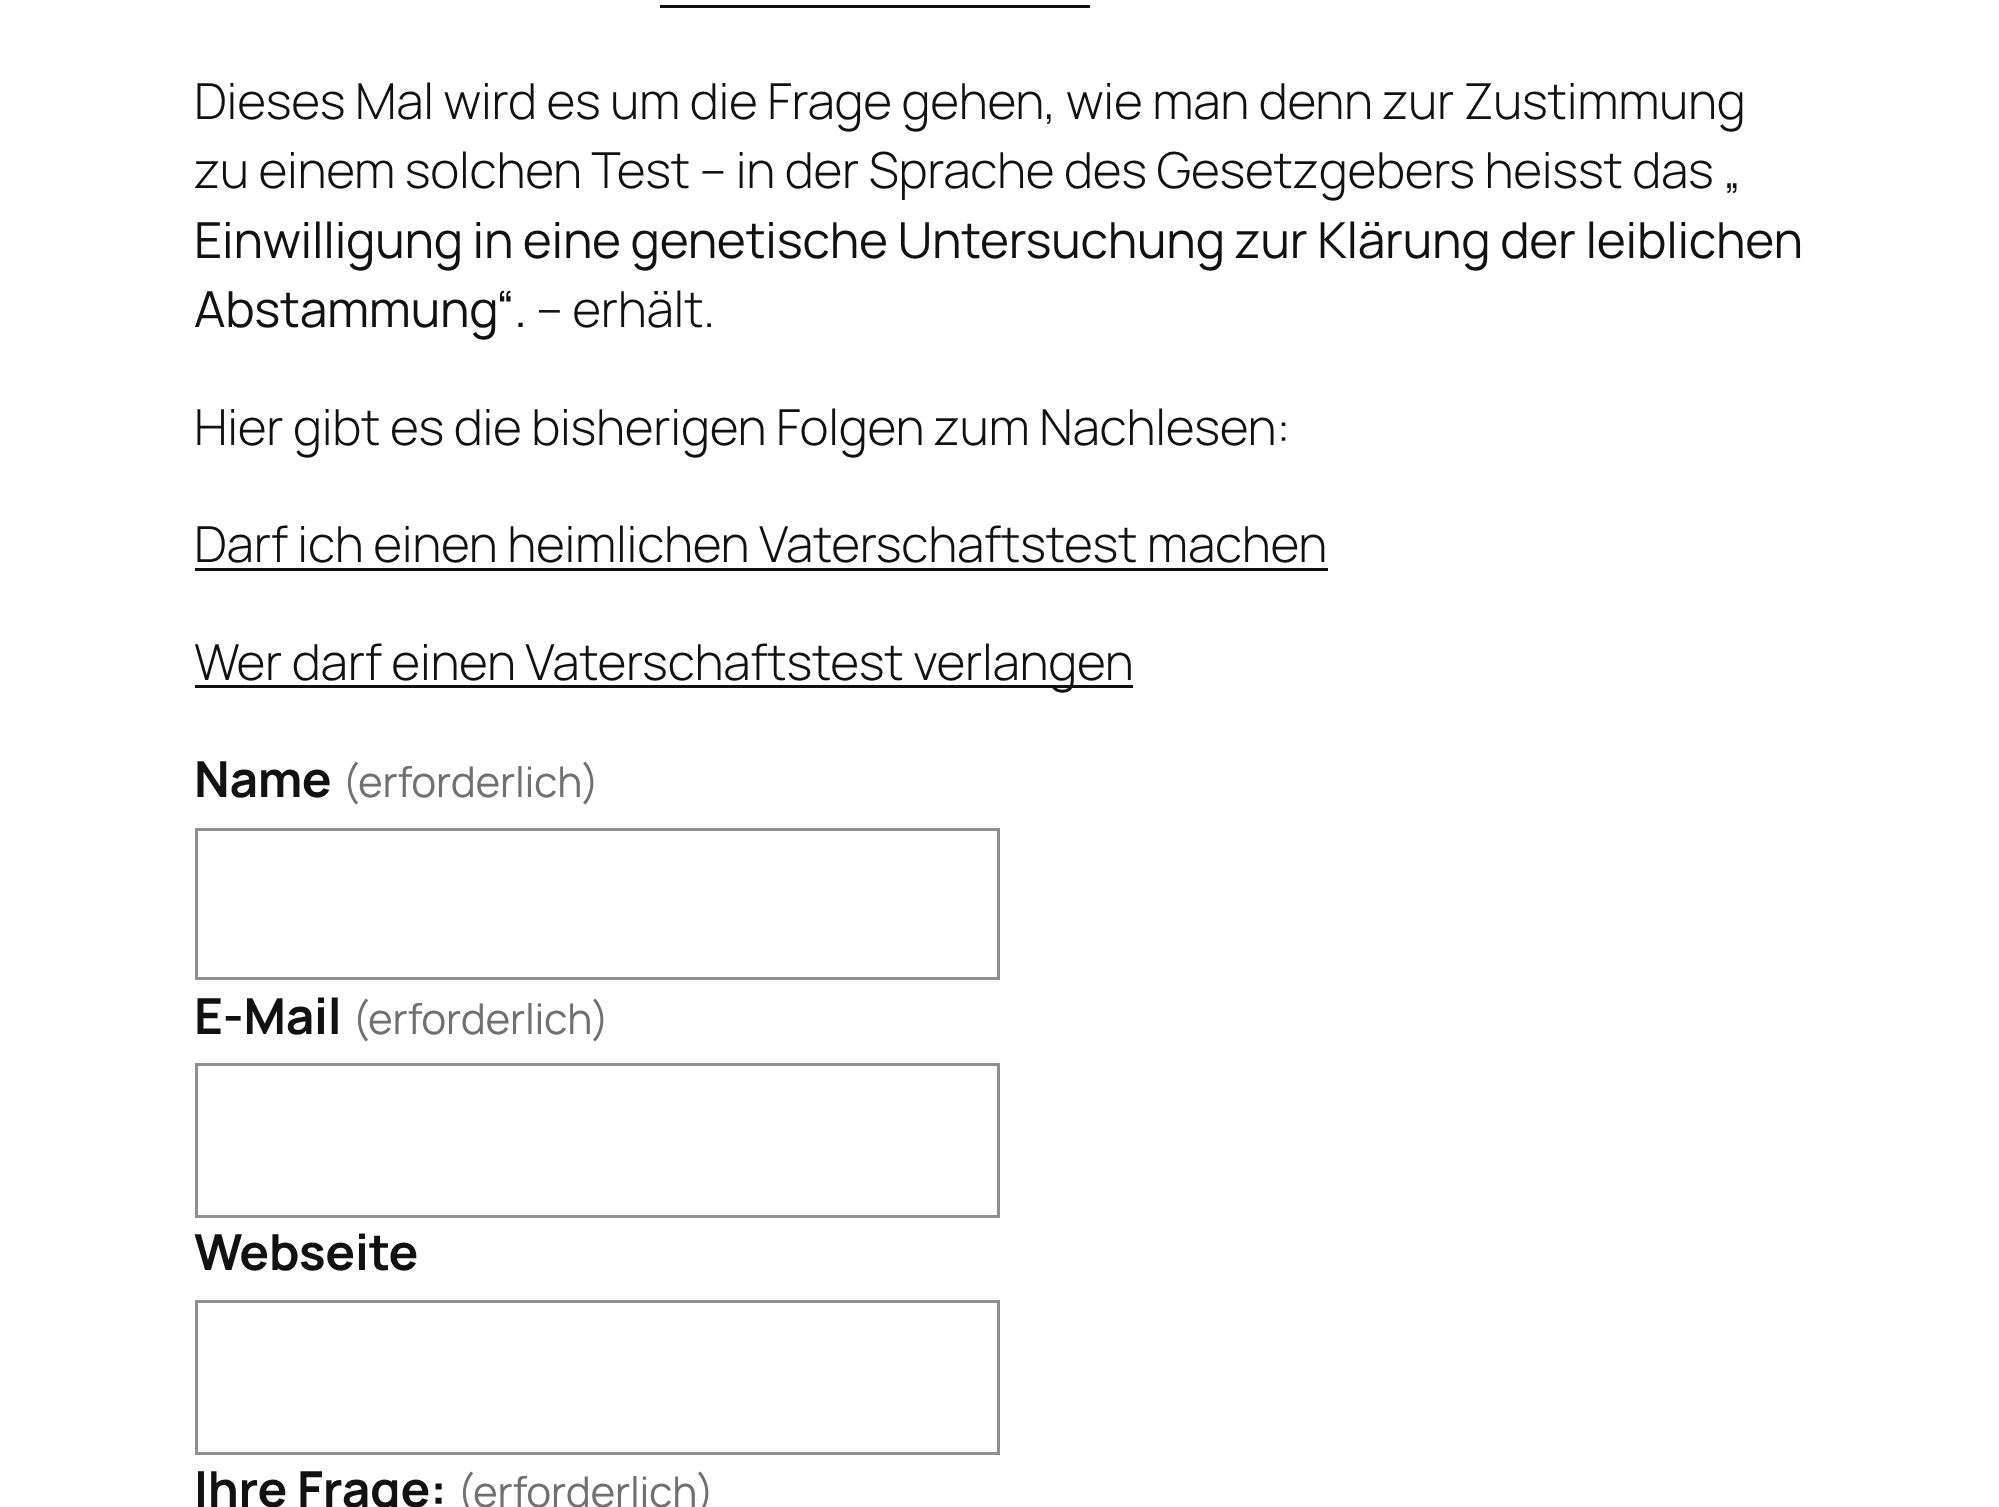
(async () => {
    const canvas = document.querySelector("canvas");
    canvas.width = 1999;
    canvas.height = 1507;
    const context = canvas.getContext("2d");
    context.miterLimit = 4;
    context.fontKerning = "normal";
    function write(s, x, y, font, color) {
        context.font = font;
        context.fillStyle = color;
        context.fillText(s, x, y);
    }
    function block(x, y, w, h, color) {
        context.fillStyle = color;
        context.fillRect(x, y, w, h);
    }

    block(0, 0, 1999, 1507, "rgb(255, 255, 255)");
    block(660, 5, 430, 3, "rgb(17, 17, 17)");
    context.letterSpacing = "-0.25px";
    write("Dieses Mal wird es um die Frage gehen, wie man denn zur Zustimmung", 194, 119, "300 49.7px Manrope", "rgb(17, 17, 17)");
    write("zu einem solchen Test – in der Sprache des Gesetzgebers heisst das „", 194, 188, "300 49.7px Manrope", "rgb(17, 17, 17)");
    write("Einwilligung in eine genetische Untersuchung zur Klärung der leiblichen", 194, 258, "49.7px Manrope", "rgb(17, 17, 17)");
    write("Abstammung“.", 194, 327, "49.7px Manrope", "rgb(17, 17, 17)");
    write("– erhält.", 536, 327, "300 49.7px Manrope", "rgb(17, 17, 17)");
    write("Hier gibt es die bisherigen Folgen zum Nachlesen:", 194, 445, "300 49.7px Manrope", "rgb(17, 17, 17)");
    write("Darf ich einen heimlichen Vaterschaftstest machen", 194, 562, "300 49.7px Manrope", "rgb(17, 17, 17)");
    block(195, 568, 1133, 3, "rgb(17, 17, 17)");
    block(195, 685, 938, 3, "rgb(17, 17, 17)");
    write("Wer darf einen Vaterschaftstest verlangen", 194, 680, "300 49.7px Manrope", "rgb(17, 17, 17)");
    write("Name", 194, 797, "bold 49.7px Manrope", "rgb(17, 17, 17)");
    write("(erforderlich)", 342, 797, "42.25px Manrope", "rgb(112, 112, 112)");
    context.strokeStyle = "rgb(140, 143, 148)";
    context.lineWidth = 3;
    context.strokeRect(196.5, 829.5, 802, 149);
    write("E-Mail", 194, 1034, "bold 49.7px Manrope", "rgb(17, 17, 17)");
    write("(erforderlich)", 352, 1034, "42.25px Manrope", "rgb(112, 112, 112)");
    context.strokeRect(196.5, 1064.5, 802, 152);
    write("Webseite", 194, 1270, "bold 49.7px Manrope", "rgb(17, 17, 17)");
    context.strokeRect(196.5, 1301.5, 802, 152);
    write("Ihre Frage:", 194, 1507, "bold 49.7px Manrope", "rgb(17, 17, 17)");
    write("(erforderlich)", 457, 1507, "42.25px Manrope", "rgb(112, 112, 112)");
})();
